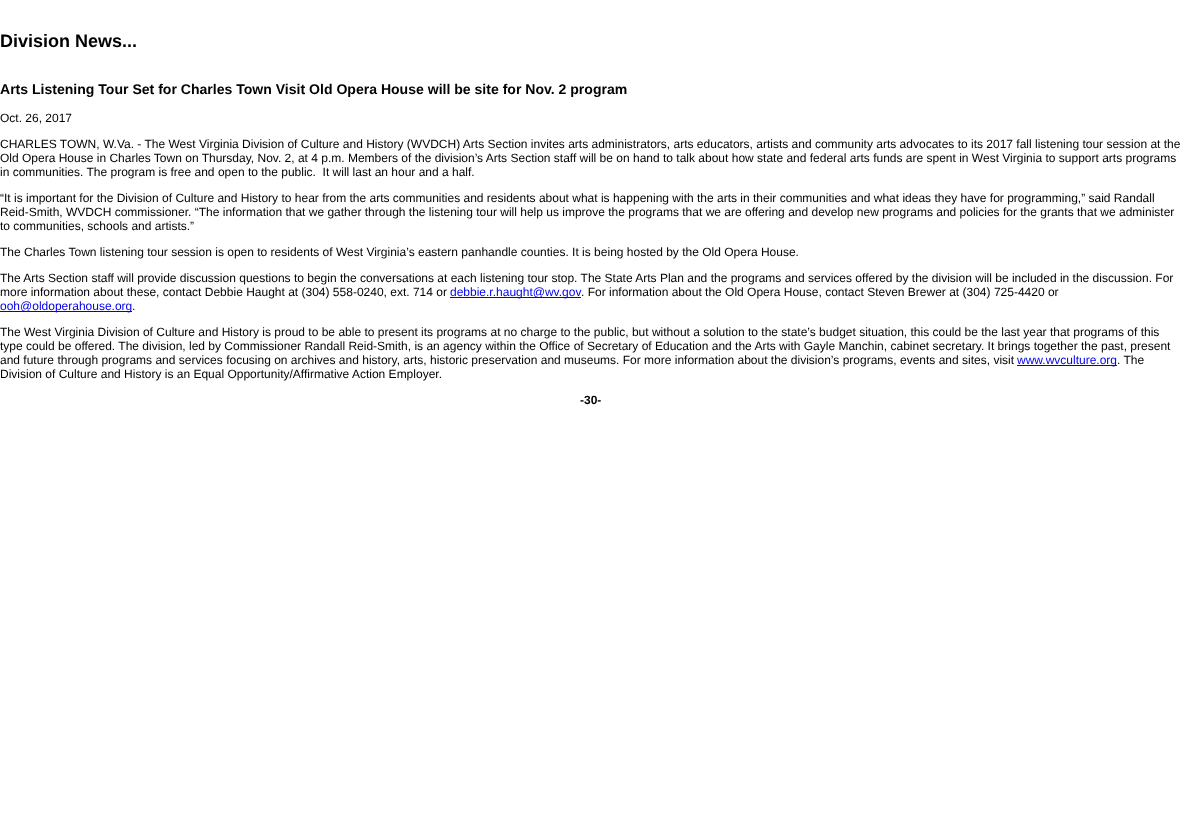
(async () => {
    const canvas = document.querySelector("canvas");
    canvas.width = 1189;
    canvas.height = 839;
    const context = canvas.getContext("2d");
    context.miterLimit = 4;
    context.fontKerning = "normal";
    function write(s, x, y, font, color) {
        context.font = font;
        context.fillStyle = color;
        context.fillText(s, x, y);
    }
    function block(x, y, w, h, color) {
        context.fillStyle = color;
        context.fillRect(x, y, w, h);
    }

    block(0, 0, 1189, 839, "rgb(255, 255, 255)");
    write("Division News...", 0, 47, "bold 18px Liberation Sans", "rgb(0, 0, 0)");
    write("Arts Listening Tour Set for Charles Town Visit Old Opera House will be site for Nov. 2 program", 0, 94, "bold 14.05px Liberation Sans", "rgb(0, 0, 0)");
    write("Oct. 26, 2017", 0, 122, "12px Liberation Sans", "rgb(0, 0, 0)");
    write("CHARLES TOWN, W.Va. - The West Virginia Division of Culture and History (WVDCH) Arts Section invites arts administrators, arts educators, artists and community arts advocates to its 2017 fall listening tour session at the", 0, 148, "12px Liberation Sans", "rgb(0, 0, 0)");
    write("Old Opera House in Charles Town on Thursday, Nov. 2, at 4 p.m. Members of the division’s Arts Section staff will be on hand to talk about how state and federal arts funds are spent in West Virginia to support arts programs", 0, 162, "12px Liberation Sans", "rgb(0, 0, 0)");
    write("in communities. The program is free and open to the public.  It will last an hour and a half.", 0, 176, "12px Liberation Sans", "rgb(0, 0, 0)");
    write("“It is important for the Division of Culture and History to hear from the arts communities and residents about what is happening with the arts in their communities and what ideas they have for programming,” said Randall", 0, 202, "12px Liberation Sans", "rgb(0, 0, 0)");
    write("Reid-Smith, WVDCH commissioner. “The information that we gather through the listening tour will help us improve the programs that we are offering and develop new programs and policies for the grants that we administer", 0, 216, "12px Liberation Sans", "rgb(0, 0, 0)");
    write("to communities, schools and artists.”", 0, 230, "12px Liberation Sans", "rgb(0, 0, 0)");
    write("The Charles Town listening tour session is open to residents of West Virginia’s eastern panhandle counties. It is being hosted by the Old Opera House.", 0, 256, "12px Liberation Sans", "rgb(0, 0, 0)");
    write("The Arts Section staff will provide discussion questions to begin the conversations at each listening tour stop. The State Arts Plan and the programs and services offered by the division will be included in the discussion. For", 0, 282, "12px Liberation Sans", "rgb(0, 0, 0)");
    write("more information about these, contact Debbie Haught at (304) 558-0240, ext. 714 or", 0, 296, "12px Liberation Sans", "rgb(0, 0, 0)");
    block(450, 297, 131, 1, "rgb(0, 0, 238)");
    write("debbie.r.haught@wv.gov", 450, 296, "12px Liberation Sans", "rgb(0, 0, 238)");
    write(". For information about the Old Opera House, contact Steven Brewer at (304) 725-4420 or", 581, 296, "12px Liberation Sans", "rgb(0, 0, 0)");
    block(0, 311, 132, 1, "rgb(0, 0, 238)");
    write("ooh@oldoperahouse.org", 0, 310, "12px Liberation Sans", "rgb(0, 0, 238)");
    write(".", 132, 310, "12px Liberation Sans", "rgb(0, 0, 0)");
    write("The West Virginia Division of Culture and History is proud to be able to present its programs at no charge to the public, but without a solution to the state’s budget situation, this could be the last year that programs of this", 0, 336, "12px Liberation Sans", "rgb(0, 0, 0)");
    write("type could be offered. The division, led by Commissioner Randall Reid-Smith, is an agency within the Office of Secretary of Education and the Arts with Gayle Manchin, cabinet secretary. It brings together the past, present", 0, 350, "12px Liberation Sans", "rgb(0, 0, 0)");
    write("and future through programs and services focusing on archives and history, arts, historic preservation and museums. For more information about the division’s programs, events and sites, visit", 0, 364, "12px Liberation Sans", "rgb(0, 0, 0)");
    block(1017, 365, 100, 1, "rgb(0, 0, 238)");
    write("www.wvculture.org", 1017, 364, "12px Liberation Sans", "rgb(0, 0, 238)");
    write(". The", 1117, 364, "12px Liberation Sans", "rgb(0, 0, 0)");
    write("Division of Culture and History is an Equal Opportunity/Affirmative Action Employer.", 0, 378, "12px Liberation Sans", "rgb(0, 0, 0)");
    write("-30-", 580, 404, "bold 12px Liberation Sans", "rgb(0, 0, 0)");
})();
